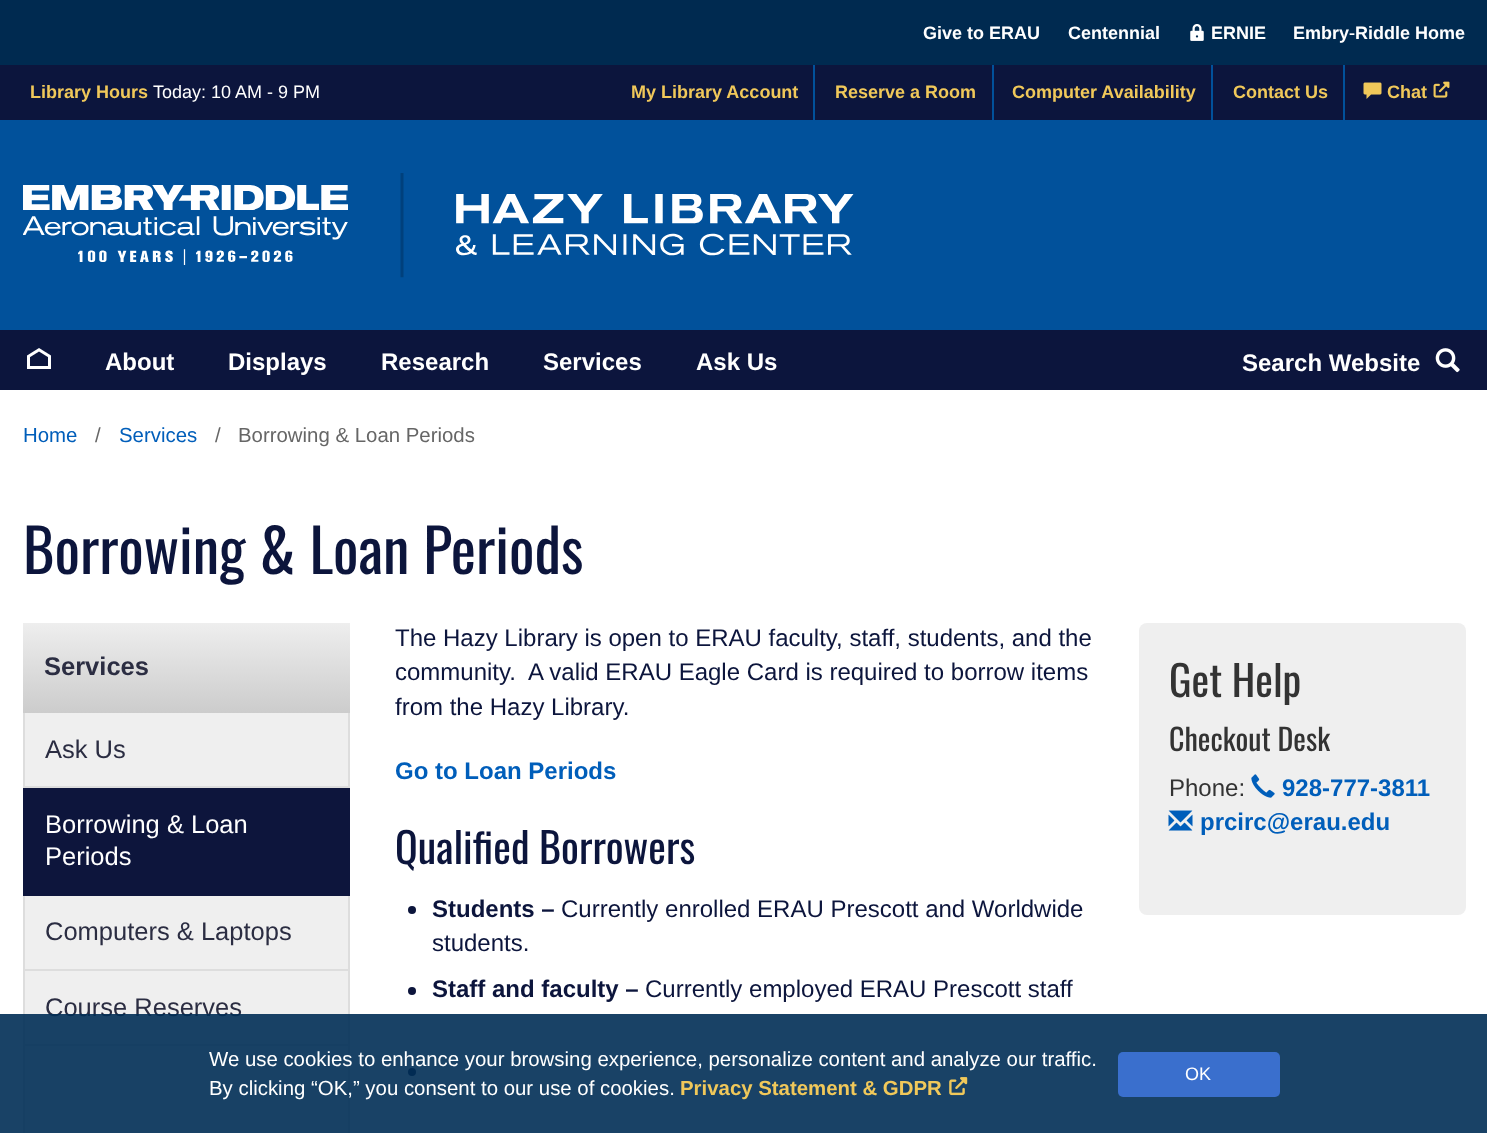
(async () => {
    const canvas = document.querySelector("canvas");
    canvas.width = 1487;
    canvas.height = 1133;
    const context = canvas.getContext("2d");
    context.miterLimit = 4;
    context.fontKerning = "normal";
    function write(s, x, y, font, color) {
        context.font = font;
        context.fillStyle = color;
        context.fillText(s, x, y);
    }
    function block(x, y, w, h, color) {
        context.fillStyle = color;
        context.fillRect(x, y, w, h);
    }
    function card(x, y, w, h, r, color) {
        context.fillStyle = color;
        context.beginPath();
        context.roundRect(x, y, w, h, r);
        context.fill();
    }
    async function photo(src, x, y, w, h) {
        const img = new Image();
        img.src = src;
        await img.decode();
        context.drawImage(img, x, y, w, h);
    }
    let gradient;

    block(0, 0, 1487, 1133, "rgb(255, 255, 255)");
    block(0, 0, 1487, 65, "rgb(0, 42, 80)");
    write("Give to ERAU", 923, 39, "bold 18px Liberation Sans", "rgb(255, 255, 255)");
    write("Centennial", 1068, 39, "bold 18px Liberation Sans", "rgb(255, 255, 255)");
    await photo("media/1.png", 1190, 24, 14, 17);
    write("ERNIE", 1211, 39, "bold 18px Liberation Sans", "rgb(255, 255, 255)");
    write("Embry‑Riddle Home", 1293, 39, "bold 18px Liberation Sans", "rgb(255, 255, 255)");
    block(0, 65, 1487, 55, "rgb(12, 21, 61)");
    write("Library Hours", 30, 98, "bold 18px Liberation Sans", "rgb(240, 200, 90)");
    write("Today: 10 AM - 9 PM", 153, 98, "18px Liberation Sans", "rgb(255, 255, 255)");
    block(813, 65, 2, 55, "rgb(1, 81, 155)");
    write("My Library Account", 631, 98, "bold 18px Liberation Sans", "rgb(240, 200, 90)");
    block(992, 65, 2, 55, "rgb(1, 81, 155)");
    write("Reserve a Room", 835, 98, "bold 18px Liberation Sans", "rgb(240, 200, 90)");
    block(1211, 65, 2, 55, "rgb(1, 81, 155)");
    write("Computer Availability", 1012, 98, "bold 18px Liberation Sans", "rgb(240, 200, 90)");
    block(1343, 65, 2, 55, "rgb(1, 81, 155)");
    write("Contact Us", 1233, 98, "bold 18px Liberation Sans", "rgb(240, 200, 90)");
    await photo("media/2.png", 1363, 82, 19, 17);
    write("Chat", 1387, 98, "bold 18px Liberation Sans", "rgb(240, 200, 90)");
    await photo("media/3.png", 1433, 81, 17, 17);
    block(0, 120, 1487, 210, "rgb(1, 81, 155)");
    await photo("media/4.png", 23, 173, 831, 105);
    block(0, 330, 1487, 60, "rgb(12, 21, 61)");
    await photo("media/5.png", 27, 348, 24, 21);
    write("About", 105, 370, "bold 24px Liberation Sans", "rgb(255, 255, 255)");
    write("Displays", 228, 370, "bold 24px Liberation Sans", "rgb(255, 255, 255)");
    write("Research", 381, 370, "bold 24px Liberation Sans", "rgb(255, 255, 255)");
    write("Services", 543, 370, "bold 24px Liberation Sans", "rgb(255, 255, 255)");
    write("Ask Us", 696, 370, "bold 24px Liberation Sans", "rgb(255, 255, 255)");
    write("Search Website", 1242, 371, "bold 24px Liberation Sans", "rgb(255, 255, 255)");
    await photo("media/6.png", 1435, 348, 25, 25);
    write("Home", 23, 442, "20.4px Liberation Sans", "rgb(0, 94, 186)");
    write("/", 95, 442, "20.4px Liberation Sans", "rgb(102, 102, 102)");
    write("Services", 119, 442, "20.4px Liberation Sans", "rgb(0, 94, 186)");
    write("/", 215, 442, "20.4px Liberation Sans", "rgb(102, 102, 102)");
    write("Borrowing & Loan Periods", 238, 442, "20.4px Liberation Sans", "rgb(102, 102, 102)");
    write("Borrowing & Loan Periods", 23, 574, "60px Oswald", "rgb(12, 21, 60)");
    gradient = context.createLinearGradient(186, 623, 186, 713);
    gradient.addColorStop(0, "rgb(238, 238, 238)");
    gradient.addColorStop(1, "rgb(204, 204, 204)");
    context.fillStyle = gradient;
    context.fillRect(23, 623, 327, 90);
    write("Services", 44, 675, "bold 25.5px Liberation Sans", "rgb(43, 45, 66)");
    block(25, 713, 323, 73, "rgb(239, 239, 239)");
    block(348, 713, 2, 75, "rgb(221, 221, 221)");
    block(23, 786, 327, 2, "rgb(221, 221, 221)");
    block(23, 713, 2, 75, "rgb(221, 221, 221)");
    write("Ask Us", 45, 758, "25.5px Liberation Sans", "rgb(43, 45, 66)");
    block(25, 788, 323, 106, "rgb(13, 21, 60)");
    block(348, 788, 2, 108, "rgb(13, 21, 60)");
    block(23, 894, 327, 2, "rgb(13, 21, 60)");
    block(23, 788, 2, 108, "rgb(13, 21, 60)");
    write("Borrowing & Loan", 45, 833, "25.5px Liberation Sans", "rgb(255, 255, 255)");
    write("Periods", 45, 865, "25.5px Liberation Sans", "rgb(255, 255, 255)");
    block(25, 896, 323, 73, "rgb(239, 239, 239)");
    block(348, 896, 2, 237, "rgb(221, 221, 221)");
    block(23, 969, 327, 2, "rgb(221, 221, 221)");
    block(23, 896, 2, 75, "rgb(221, 221, 221)");
    write("Computers & Laptops", 45, 940, "25.5px Liberation Sans", "rgb(43, 45, 66)");
    block(25, 971, 323, 73, "rgb(239, 239, 239)");
    block(23, 1044, 327, 2, "rgb(221, 221, 221)");
    block(23, 971, 2, 162, "rgb(221, 221, 221)");
    write("Course Reserves", 45, 1016, "25.5px Liberation Sans", "rgb(43, 45, 66)");
    block(25, 1046, 323, 87, "rgb(239, 239, 239)");
    write("The Hazy Library is open to ERAU faculty, staff, students, and the", 395, 646, "24px Liberation Sans", "rgb(12, 21, 60)");
    write("community.  A valid ERAU Eagle Card is required to borrow items", 395, 680, "24px Liberation Sans", "rgb(12, 21, 60)");
    write("from the Hazy Library.", 395, 715, "24px Liberation Sans", "rgb(12, 21, 60)");
    write("Go to Loan Periods", 395, 779, "bold 24px Liberation Sans", "rgb(0, 94, 186)");
    write("Qualified Borrowers", 395, 864, "42px Oswald", "rgb(12, 21, 60)");
    context.beginPath();
    context.arc(412, 910, 4, 0, Math.PI * 2);
    context.fill();
    write("Students –", 432, 917, "bold 24px Liberation Sans", "rgb(12, 21, 60)");
    write("Currently enrolled ERAU Prescott and Worldwide", 561, 917, "24px Liberation Sans", "rgb(12, 21, 60)");
    write("students.", 432, 951, "24px Liberation Sans", "rgb(12, 21, 60)");
    context.beginPath();
    context.arc(412, 991, 4, 0, Math.PI * 2);
    context.fill();
    write("Staff and faculty –", 432, 997, "bold 24px Liberation Sans", "rgb(12, 21, 60)");
    write("Currently employed ERAU Prescott staff", 645, 997, "24px Liberation Sans", "rgb(12, 21, 60)");
    context.beginPath();
    context.arc(412, 1072, 4, 0, Math.PI * 2);
    context.fill();
    card(1139, 623, 327, 292, 8, "rgb(239, 239, 239)");
    write("Get Help", 1169, 697, "42px Oswald", "rgb(51, 51, 51)");
    write("Checkout Desk", 1169, 751, "30px Oswald", "rgb(51, 51, 51)");
    write("Phone:", 1169, 796, "24px Liberation Sans", "rgb(51, 51, 51)");
    await photo("media/7.png", 1251, 774, 24, 24);
    write("928-777-3811", 1282, 796, "bold 24px Liberation Sans", "rgb(0, 94, 186)");
    await photo("media/8.png", 1168, 810, 25, 21);
    write("prcirc@erau.edu", 1200, 830, "bold 24px Liberation Sans", "rgb(0, 94, 186)");
    block(0, 1014, 1487, 119, "rgba(0, 45, 85, 0.9)");
    write("We use cookies to enhance your browsing experience, personalize content and analyze our traffic.", 209, 1066, "20.4px Liberation Sans", "rgb(255, 255, 255)");
    write("By clicking “OK,” you consent to our use of cookies.", 209, 1095, "20.4px Liberation Sans", "rgb(255, 255, 255)");
    write("Privacy Statement & GDPR", 680, 1095, "bold 20.4px Liberation Sans", "rgb(240, 200, 90)");
    await photo("media/9.png", 949, 1077, 19, 19);
    card(1118, 1052, 162, 45, 5, "rgb(58, 111, 205)");
    write("OK", 1185, 1080, "18px Liberation Sans", "rgb(255, 255, 255)");
})();
